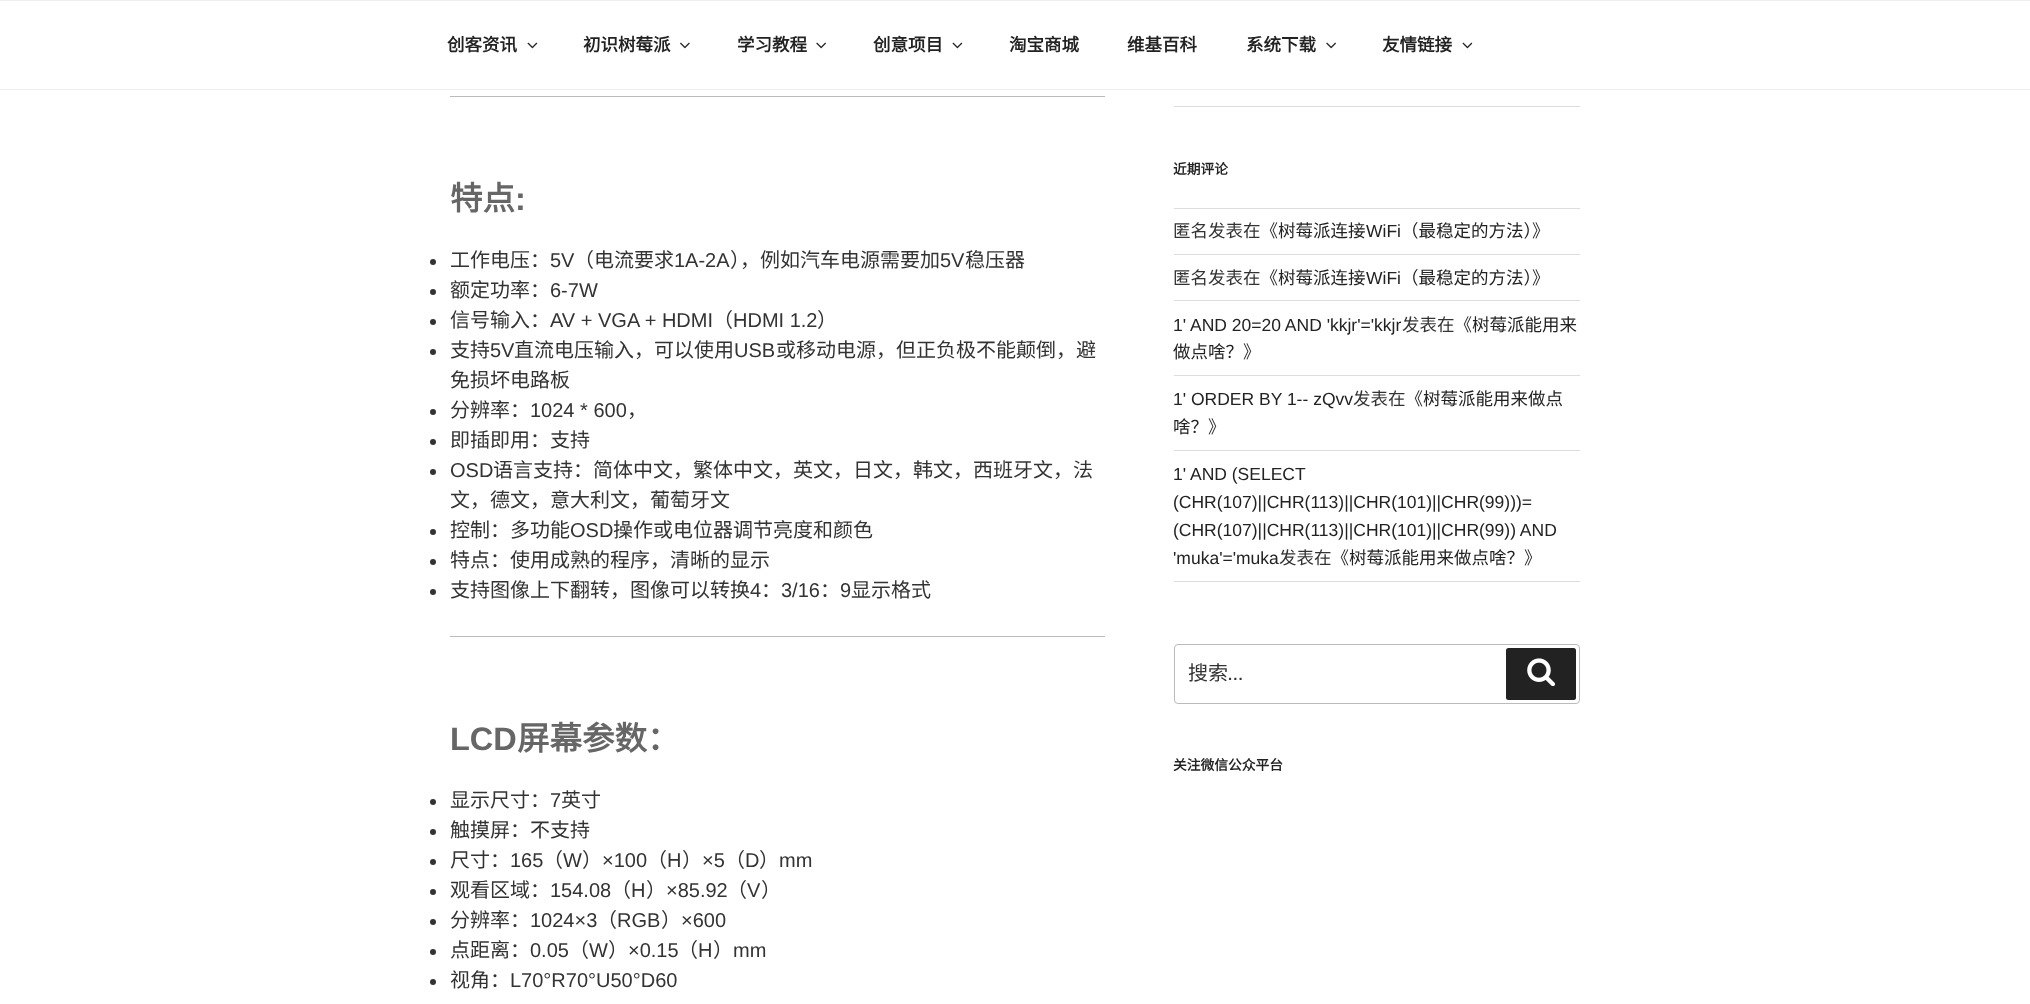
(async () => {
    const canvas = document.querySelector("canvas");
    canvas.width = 2030;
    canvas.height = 1004;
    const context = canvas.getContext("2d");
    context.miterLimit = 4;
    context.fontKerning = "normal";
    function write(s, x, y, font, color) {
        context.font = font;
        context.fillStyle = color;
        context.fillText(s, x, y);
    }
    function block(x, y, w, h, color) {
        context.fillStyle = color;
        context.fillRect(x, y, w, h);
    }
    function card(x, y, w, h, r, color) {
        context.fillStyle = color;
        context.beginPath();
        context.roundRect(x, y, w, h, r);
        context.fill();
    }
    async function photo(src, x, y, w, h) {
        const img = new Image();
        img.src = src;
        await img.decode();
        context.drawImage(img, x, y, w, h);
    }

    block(0, 0, 2030, 1004, "rgb(255, 255, 255)");
    block(0, 0, 2030, 1, "rgb(238, 238, 238)");
    block(0, 89, 2030, 1, "rgb(238, 238, 238)");
    write("创客资讯", 447, 51, "bold 17.5px Noto Sans CJK SC", "rgb(34, 34, 34)");
    await photo("media/1.png", 527, 42, 11, 7);
    write("初识树莓派", 583, 51, "bold 17.5px Noto Sans CJK SC", "rgb(34, 34, 34)");
    await photo("media/2.png", 680, 42, 10, 7);
    write("学习教程", 737, 51, "bold 17.5px Noto Sans CJK SC", "rgb(34, 34, 34)");
    await photo("media/3.png", 816, 42, 10, 7);
    write("创意项目", 873, 51, "bold 17.5px Noto Sans CJK SC", "rgb(34, 34, 34)");
    await photo("media/1.png", 952, 42, 11, 7);
    write("淘宝商城", 1009, 51, "bold 17.5px Noto Sans CJK SC", "rgb(34, 34, 34)");
    write("维基百科", 1127, 51, "bold 17.5px Noto Sans CJK SC", "rgb(34, 34, 34)");
    write("系统下载", 1246, 51, "bold 17.5px Noto Sans CJK SC", "rgb(34, 34, 34)");
    await photo("media/3.png", 1326, 42, 10, 7);
    write("友情链接", 1382, 51, "bold 17.5px Noto Sans CJK SC", "rgb(34, 34, 34)");
    await photo("media/1.png", 1462, 42, 11, 7);
    block(450, 96, 655, 1, "rgb(187, 187, 187)");
    write("特点", 450, 210, "bold 32.5px Noto Sans CJK SC", "rgb(102, 102, 102)");
    write(":", 515, 210, "bold 32.5px Liberation Sans", "rgb(102, 102, 102)");
    context.fillStyle = "rgb(51, 51, 51)";
    context.beginPath();
    context.arc(433, 262, 3, 0, Math.PI * 2);
    context.fill();
    write("工作电压：", 450, 267, "20px Noto Sans CJK SC", "rgb(51, 51, 51)");
    write("5V", 550, 267, "20px Liberation Sans", "rgb(51, 51, 51)");
    write("（电流要求", 574, 267, "20px Noto Sans CJK SC", "rgb(51, 51, 51)");
    write("1A-2A", 674, 267, "20px Liberation Sans", "rgb(51, 51, 51)");
    write("），例如汽车电源需要加", 730, 267, "20px Noto Sans CJK SC", "rgb(51, 51, 51)");
    write("5V", 940, 267, "20px Liberation Sans", "rgb(51, 51, 51)");
    write("稳压器", 965, 267, "20px Noto Sans CJK SC", "rgb(51, 51, 51)");
    context.beginPath();
    context.arc(433, 292, 3, 0, Math.PI * 2);
    context.fill();
    write("额定功率：", 450, 297, "20px Noto Sans CJK SC", "rgb(51, 51, 51)");
    write("6-7W", 550, 297, "20px Liberation Sans", "rgb(51, 51, 51)");
    context.beginPath();
    context.arc(433, 322, 3, 0, Math.PI * 2);
    context.fill();
    write("信号输入：", 450, 327, "20px Noto Sans CJK SC", "rgb(51, 51, 51)");
    write("AV + VGA + HDMI", 550, 327, "20px Liberation Sans", "rgb(51, 51, 51)");
    write("（", 713, 327, "20px Noto Sans CJK SC", "rgb(51, 51, 51)");
    write("HDMI 1.2", 733, 327, "20px Liberation Sans", "rgb(51, 51, 51)");
    write("）", 817, 327, "20px Noto Sans CJK SC", "rgb(51, 51, 51)");
    context.beginPath();
    context.arc(433, 352, 3, 0, Math.PI * 2);
    context.fill();
    write("支持", 450, 357, "20px Noto Sans CJK SC", "rgb(51, 51, 51)");
    write("5V", 490, 357, "20px Liberation Sans", "rgb(51, 51, 51)");
    write("直流电压输入，可以使用", 514, 357, "20px Noto Sans CJK SC", "rgb(51, 51, 51)");
    write("USB", 734, 357, "20px Liberation Sans", "rgb(51, 51, 51)");
    write("或移动电源，但正负极不能颠倒，避", 776, 357, "20px Noto Sans CJK SC", "rgb(51, 51, 51)");
    write("免损坏电路板", 450, 387, "20px Noto Sans CJK SC", "rgb(51, 51, 51)");
    context.beginPath();
    context.arc(433, 412, 3, 0, Math.PI * 2);
    context.fill();
    write("分辨率：", 450, 417, "20px Noto Sans CJK SC", "rgb(51, 51, 51)");
    write("1024 * 600", 530, 417, "20px Liberation Sans", "rgb(51, 51, 51)");
    write("，", 627, 417, "20px Noto Sans CJK SC", "rgb(51, 51, 51)");
    context.beginPath();
    context.arc(433, 442, 3, 0, Math.PI * 2);
    context.fill();
    write("即插即用：支持", 450, 447, "20px Noto Sans CJK SC", "rgb(51, 51, 51)");
    context.beginPath();
    context.arc(433, 472, 3, 0, Math.PI * 2);
    context.fill();
    write("OSD", 450, 477, "20px Liberation Sans", "rgb(51, 51, 51)");
    write("语言支持：简体中文，繁体中文，英文，日文，韩文，西班牙文，法", 493, 477, "20px Noto Sans CJK SC", "rgb(51, 51, 51)");
    write("文，德文，意大利文，葡萄牙文", 450, 507, "20px Noto Sans CJK SC", "rgb(51, 51, 51)");
    context.beginPath();
    context.arc(433, 532, 3, 0, Math.PI * 2);
    context.fill();
    write("控制：多功能", 450, 537, "20px Noto Sans CJK SC", "rgb(51, 51, 51)");
    write("OSD", 570, 537, "20px Liberation Sans", "rgb(51, 51, 51)");
    write("操作或电位器调节亮度和颜色", 613, 537, "20px Noto Sans CJK SC", "rgb(51, 51, 51)");
    context.beginPath();
    context.arc(433, 562, 3, 0, Math.PI * 2);
    context.fill();
    write("特点：使用成熟的程序，清晰的显示", 450, 567, "20px Noto Sans CJK SC", "rgb(51, 51, 51)");
    context.beginPath();
    context.arc(433, 592, 3, 0, Math.PI * 2);
    context.fill();
    write("支持图像上下翻转，图像可以转换", 450, 597, "20px Noto Sans CJK SC", "rgb(51, 51, 51)");
    write("4", 750, 597, "20px Liberation Sans", "rgb(51, 51, 51)");
    write("：", 761, 597, "20px Noto Sans CJK SC", "rgb(51, 51, 51)");
    write("3/16", 781, 597, "20px Liberation Sans", "rgb(51, 51, 51)");
    write("：", 820, 597, "20px Noto Sans CJK SC", "rgb(51, 51, 51)");
    write("9", 840, 597, "20px Liberation Sans", "rgb(51, 51, 51)");
    write("显示格式", 851, 597, "20px Noto Sans CJK SC", "rgb(51, 51, 51)");
    block(450, 636, 655, 1, "rgb(187, 187, 187)");
    write("LCD", 450, 750, "bold 32.5px Liberation Sans", "rgb(102, 102, 102)");
    write("屏幕参数：", 517, 750, "bold 32.5px Noto Sans CJK SC", "rgb(102, 102, 102)");
    context.fillStyle = "rgb(51, 51, 51)";
    context.beginPath();
    context.arc(433, 802, 3, 0, Math.PI * 2);
    context.fill();
    write("显示尺寸：", 450, 807, "20px Noto Sans CJK SC", "rgb(51, 51, 51)");
    write("7", 550, 807, "20px Liberation Sans", "rgb(51, 51, 51)");
    write("英寸", 561, 807, "20px Noto Sans CJK SC", "rgb(51, 51, 51)");
    context.beginPath();
    context.arc(433, 832, 3, 0, Math.PI * 2);
    context.fill();
    write("触摸屏：不支持", 450, 837, "20px Noto Sans CJK SC", "rgb(51, 51, 51)");
    context.beginPath();
    context.arc(433, 862, 3, 0, Math.PI * 2);
    context.fill();
    write("尺寸：", 450, 867, "20px Noto Sans CJK SC", "rgb(51, 51, 51)");
    write("165", 510, 867, "20px Liberation Sans", "rgb(51, 51, 51)");
    write("（", 543, 867, "20px Noto Sans CJK SC", "rgb(51, 51, 51)");
    write("W", 563, 867, "20px Liberation Sans", "rgb(51, 51, 51)");
    write("）", 582, 867, "20px Noto Sans CJK SC", "rgb(51, 51, 51)");
    write("×100", 602, 867, "20px Liberation Sans", "rgb(51, 51, 51)");
    write("（", 647, 867, "20px Noto Sans CJK SC", "rgb(51, 51, 51)");
    write("H", 667, 867, "20px Liberation Sans", "rgb(51, 51, 51)");
    write("）", 682, 867, "20px Noto Sans CJK SC", "rgb(51, 51, 51)");
    write("×5", 702, 867, "20px Liberation Sans", "rgb(51, 51, 51)");
    write("（", 725, 867, "20px Noto Sans CJK SC", "rgb(51, 51, 51)");
    write("D", 745, 867, "20px Liberation Sans", "rgb(51, 51, 51)");
    write("）", 759, 867, "20px Noto Sans CJK SC", "rgb(51, 51, 51)");
    write("mm", 779, 867, "20px Liberation Sans", "rgb(51, 51, 51)");
    context.beginPath();
    context.arc(433, 892, 3, 0, Math.PI * 2);
    context.fill();
    write("观看区域：", 450, 897, "20px Noto Sans CJK SC", "rgb(51, 51, 51)");
    write("154.08", 550, 897, "20px Liberation Sans", "rgb(51, 51, 51)");
    write("（", 611, 897, "20px Noto Sans CJK SC", "rgb(51, 51, 51)");
    write("H", 631, 897, "20px Liberation Sans", "rgb(51, 51, 51)");
    write("）", 646, 897, "20px Noto Sans CJK SC", "rgb(51, 51, 51)");
    write("×85.92", 666, 897, "20px Liberation Sans", "rgb(51, 51, 51)");
    write("（", 727, 897, "20px Noto Sans CJK SC", "rgb(51, 51, 51)");
    write("V", 747, 897, "20px Liberation Sans", "rgb(51, 51, 51)");
    write("）", 761, 897, "20px Noto Sans CJK SC", "rgb(51, 51, 51)");
    context.beginPath();
    context.arc(433, 922, 3, 0, Math.PI * 2);
    context.fill();
    write("分辨率：", 450, 927, "20px Noto Sans CJK SC", "rgb(51, 51, 51)");
    write("1024×3", 530, 927, "20px Liberation Sans", "rgb(51, 51, 51)");
    write("（", 597, 927, "20px Noto Sans CJK SC", "rgb(51, 51, 51)");
    write("RGB", 617, 927, "20px Liberation Sans", "rgb(51, 51, 51)");
    write("）", 661, 927, "20px Noto Sans CJK SC", "rgb(51, 51, 51)");
    write("×600", 681, 927, "20px Liberation Sans", "rgb(51, 51, 51)");
    context.beginPath();
    context.arc(433, 952, 3, 0, Math.PI * 2);
    context.fill();
    write("点距离：", 450, 957, "20px Noto Sans CJK SC", "rgb(51, 51, 51)");
    write("0.05", 530, 957, "20px Liberation Sans", "rgb(51, 51, 51)");
    write("（", 569, 957, "20px Noto Sans CJK SC", "rgb(51, 51, 51)");
    write("W", 589, 957, "20px Liberation Sans", "rgb(51, 51, 51)");
    write("）", 608, 957, "20px Noto Sans CJK SC", "rgb(51, 51, 51)");
    write("×0.15", 628, 957, "20px Liberation Sans", "rgb(51, 51, 51)");
    write("（", 678, 957, "20px Noto Sans CJK SC", "rgb(51, 51, 51)");
    write("H", 698, 957, "20px Liberation Sans", "rgb(51, 51, 51)");
    write("）", 713, 957, "20px Noto Sans CJK SC", "rgb(51, 51, 51)");
    write("mm", 733, 957, "20px Liberation Sans", "rgb(51, 51, 51)");
    context.beginPath();
    context.arc(433, 982, 3, 0, Math.PI * 2);
    context.fill();
    write("视角：", 450, 987, "20px Noto Sans CJK SC", "rgb(51, 51, 51)");
    write("L70°R70°U50°D60", 510, 987, "20px Liberation Sans", "rgb(51, 51, 51)");
    block(1174, 106, 406, 1, "rgb(221, 221, 221)");
    write("近期评论", 1173, 174, "bold 13.75px Noto Sans CJK SC", "rgb(34, 34, 34)");
    block(1174, 208, 406, 1, "rgb(221, 221, 221)");
    block(1174, 254, 406, 1, "rgb(221, 221, 221)");
    write("匿名发表在《", 1173, 237, "17.5px Noto Sans CJK SC", "rgb(51, 51, 51)");
    write("树莓派连接", 1278, 237, "17.5px Noto Sans CJK SC", "rgb(34, 34, 34)");
    write("WiFi", 1366, 237, "17.5px Liberation Sans", "rgb(34, 34, 34)");
    write("（最稳定的方法）", 1401, 237, "17.5px Noto Sans CJK SC", "rgb(34, 34, 34)");
    write("》", 1532, 237, "17.5px Noto Sans CJK SC", "rgb(51, 51, 51)");
    block(1174, 300, 406, 1, "rgb(221, 221, 221)");
    write("匿名发表在《", 1173, 284, "17.5px Noto Sans CJK SC", "rgb(51, 51, 51)");
    write("树莓派连接", 1278, 284, "17.5px Noto Sans CJK SC", "rgb(34, 34, 34)");
    write("WiFi", 1366, 284, "17.5px Liberation Sans", "rgb(34, 34, 34)");
    write("（最稳定的方法）", 1401, 284, "17.5px Noto Sans CJK SC", "rgb(34, 34, 34)");
    write("》", 1532, 284, "17.5px Noto Sans CJK SC", "rgb(51, 51, 51)");
    block(1174, 375, 406, 1, "rgb(221, 221, 221)");
    write("1' AND 20=20 AND 'kkjr'='kkjr", 1173, 331, "17.5px Liberation Sans", "rgb(34, 34, 34)");
    write("发表在《", 1402, 331, "17.5px Noto Sans CJK SC", "rgb(51, 51, 51)");
    write("树莓派能用来", 1472, 331, "17.5px Noto Sans CJK SC", "rgb(34, 34, 34)");
    write("做点啥？", 1173, 358, "17.5px Noto Sans CJK SC", "rgb(34, 34, 34)");
    write("》", 1243, 358, "17.5px Noto Sans CJK SC", "rgb(51, 51, 51)");
    block(1174, 450, 406, 1, "rgb(221, 221, 221)");
    write("1' ORDER BY 1-- zQvv", 1173, 405, "17.5px Liberation Sans", "rgb(34, 34, 34)");
    write("发表在《", 1353, 405, "17.5px Noto Sans CJK SC", "rgb(51, 51, 51)");
    write("树莓派能用来做点", 1423, 405, "17.5px Noto Sans CJK SC", "rgb(34, 34, 34)");
    write("啥？", 1173, 433, "17.5px Noto Sans CJK SC", "rgb(34, 34, 34)");
    write("》", 1208, 433, "17.5px Noto Sans CJK SC", "rgb(51, 51, 51)");
    block(1174, 581, 406, 1, "rgb(221, 221, 221)");
    write("1' AND (SELECT", 1173, 480, "17.5px Liberation Sans", "rgb(34, 34, 34)");
    write("(CHR(107)||CHR(113)||CHR(101)||CHR(99)))=", 1173, 508, "17.5px Liberation Sans", "rgb(34, 34, 34)");
    write("(CHR(107)||CHR(113)||CHR(101)||CHR(99)) AND", 1173, 536, "17.5px Liberation Sans", "rgb(34, 34, 34)");
    write("'muka'='muka", 1173, 564, "17.5px Liberation Sans", "rgb(34, 34, 34)");
    write("发表在《", 1279, 564, "17.5px Noto Sans CJK SC", "rgb(51, 51, 51)");
    write("树莓派能用来做点啥？", 1349, 564, "17.5px Noto Sans CJK SC", "rgb(34, 34, 34)");
    write("》", 1524, 564, "17.5px Noto Sans CJK SC", "rgb(51, 51, 51)");
    context.beginPath();
    context.roundRect(1174.5, 644.5, 405, 59, 3.5);
    context.strokeStyle = "rgb(187, 187, 187)";
    context.stroke();
    write("搜索", 1188, 680, "20px Noto Sans CJK SC", "rgb(51, 51, 51)");
    write("…", 1228, 680, "20px Libre Franklin", "rgb(51, 51, 51)");
    card(1506, 648, 70, 52, 2.5, "rgb(34, 34, 34)");
    await photo("media/4.png", 1527, 658, 28, 28);
    write("关注微信公众平台", 1173, 770, "bold 13.75px Noto Sans CJK SC", "rgb(34, 34, 34)");
})();
